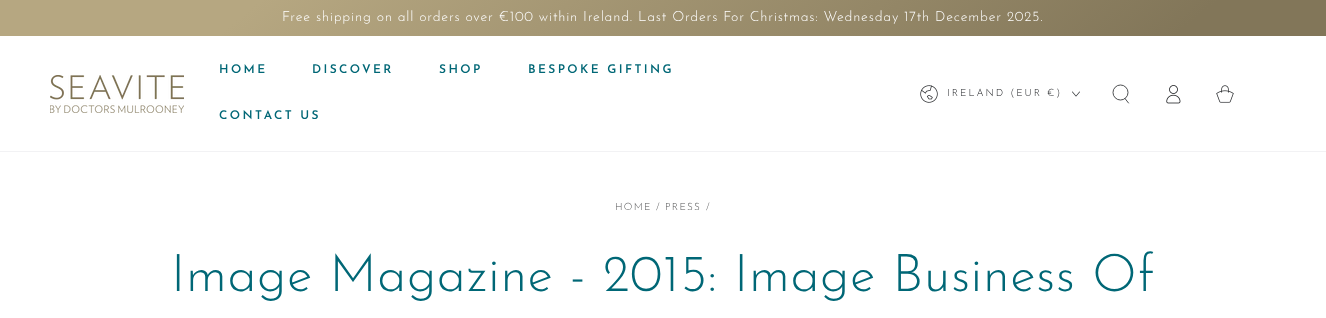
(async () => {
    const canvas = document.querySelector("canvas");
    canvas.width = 1326;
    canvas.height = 318;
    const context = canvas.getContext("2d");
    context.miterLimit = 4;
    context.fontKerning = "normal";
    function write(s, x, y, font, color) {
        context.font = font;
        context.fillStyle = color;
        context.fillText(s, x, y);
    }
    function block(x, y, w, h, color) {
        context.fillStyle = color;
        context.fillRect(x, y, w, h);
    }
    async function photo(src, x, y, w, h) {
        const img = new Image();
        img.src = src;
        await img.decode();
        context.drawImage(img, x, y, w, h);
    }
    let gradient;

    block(0, 0, 1326, 318, "rgb(255, 255, 255)");
    gradient = context.createLinearGradient(946, 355, 380, -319);
    gradient.addColorStop(0.11, "rgb(130, 118, 89)");
    gradient.addColorStop(0.81, "rgb(182, 167, 129)");
    context.fillStyle = gradient;
    context.fillRect(0, 0, 1326, 36);
    context.letterSpacing = "0.78px";
    write("Free shipping on all orders over €100 within Ireland. Last Orders For Christmas: Wednesday 17th December 2025.", 282, 21, "300 14px Josefin Sans", "rgb(255, 255, 255)");
    block(0, 151, 1326, 1, "rgb(242, 242, 244)");
    await photo("media/1.png", 50, 75, 134, 38);
    context.letterSpacing = "2.4px";
    write("HOME", 219, 73, "600 12px Josefin Sans", "rgb(0, 103, 118)");
    write("DISCOVER", 312, 73, "600 12px Josefin Sans", "rgb(0, 103, 118)");
    write("SHOP", 439, 73, "600 12px Josefin Sans", "rgb(0, 103, 118)");
    write("BESPOKE GIFTING", 528, 73, "600 12px Josefin Sans", "rgb(0, 103, 118)");
    write("CONTACT US", 219, 119, "600 12px Josefin Sans", "rgb(0, 103, 118)");
    await photo("media/2.png", 920, 85, 18, 18);
    context.letterSpacing = "2px";
    write("IRELAND (EUR €)", 947, 96, "300 10px Josefin Sans", "rgb(33, 35, 38)");
    await photo("media/3.png", 1072, 91, 8, 6);
    context.beginPath();
    context.arc(1120.5, 92.5, 7.5, 0, Math.PI * 2);
    context.strokeStyle = "rgb(33, 35, 38)";
    context.lineWidth = 0.8;
    context.stroke();
    context.beginPath();
    context.moveTo(1125, 98.5);
    context.lineTo(1128.5, 103);
    context.lineCap = "round";
    context.stroke();
    await photo("media/4.png", 1166, 85, 15, 19);
    await photo("media/5.png", 1216, 85, 18, 18);
    context.letterSpacing = "1.25px";
    write("HOME", 615, 210, "300 10px Josefin Sans", "rgb(82, 83, 84)");
    write("/ PRESS", 656, 210, "300 10px Josefin Sans", "rgb(82, 83, 84)");
    write("/", 706, 210, "300 10px Josefin Sans", "rgb(82, 83, 84)");
    context.letterSpacing = "0.6px";
    write("Image Magazine - 2015: Image Business Of", 171, 291, "300 52px Josefin Sans", "rgb(0, 103, 118)");
})();
